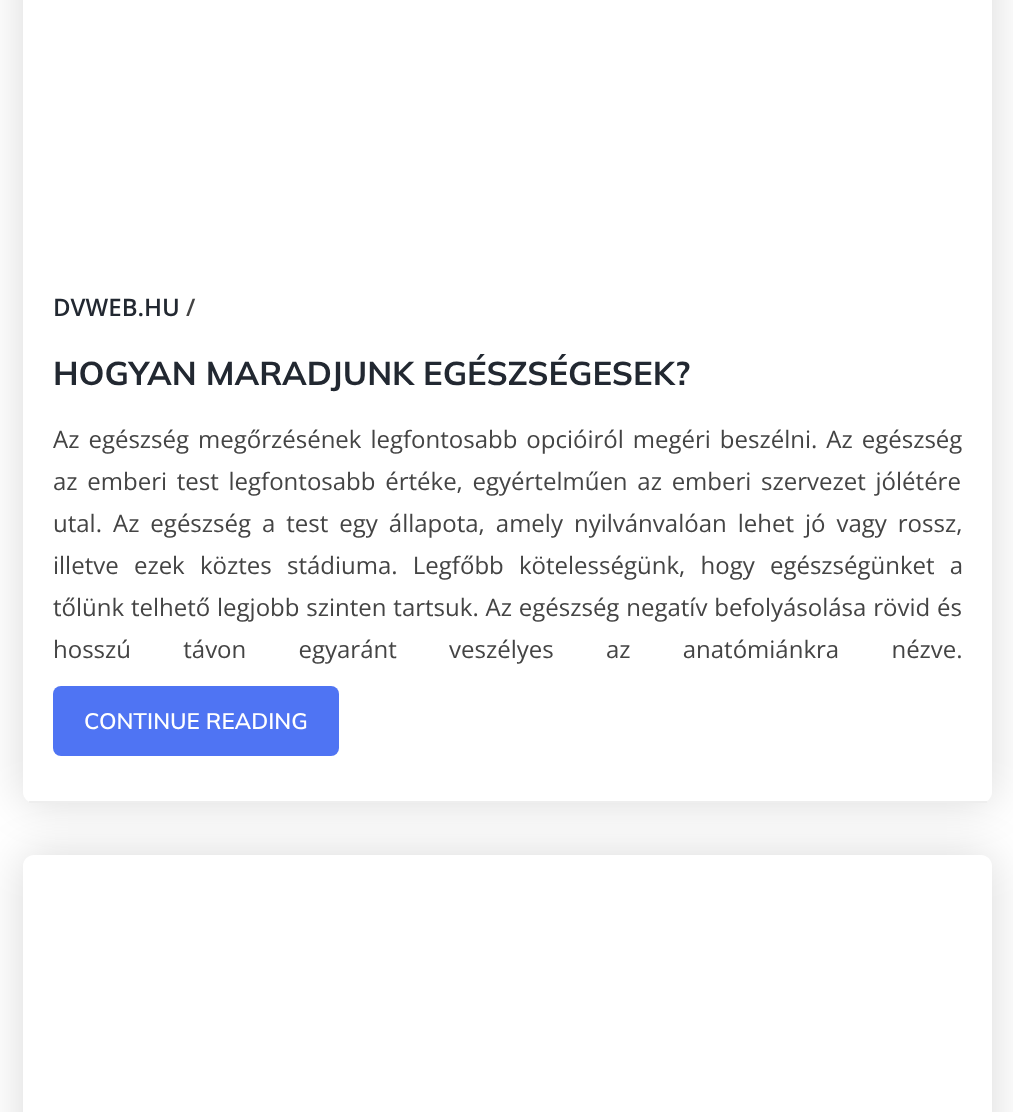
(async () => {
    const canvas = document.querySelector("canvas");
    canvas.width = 1013;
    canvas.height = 1112;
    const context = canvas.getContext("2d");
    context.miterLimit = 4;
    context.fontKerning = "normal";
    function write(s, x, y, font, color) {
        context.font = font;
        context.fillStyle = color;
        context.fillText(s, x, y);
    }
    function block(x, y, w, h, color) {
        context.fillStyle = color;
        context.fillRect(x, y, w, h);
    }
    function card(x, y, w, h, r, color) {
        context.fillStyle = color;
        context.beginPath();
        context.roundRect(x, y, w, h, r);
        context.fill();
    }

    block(0, 0, 1013, 1112, "rgb(255, 255, 255)");
    context.save();
    context.beginPath();
    context.moveTo(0, 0);
    context.lineTo(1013, 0);
    context.lineTo(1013, 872);
    context.lineTo(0, 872);
    context.closePath();
    context.moveTo(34, -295);
    context.lineTo(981, -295);
    context.bezierCurveTo(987, -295, 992, -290, 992, -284);
    context.lineTo(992, 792);
    context.bezierCurveTo(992, 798, 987, 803, 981, 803);
    context.lineTo(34, 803);
    context.bezierCurveTo(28, 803, 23, 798, 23, 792);
    context.lineTo(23, -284);
    context.bezierCurveTo(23, -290, 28, -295, 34, -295);
    context.closePath();
    context.clip("evenodd");
    context.fillStyle = "rgba(0, 0, 0, 0.15)";
    context.filter = "blur(22.5px)";
    context.beginPath();
    context.roundRect(23, -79, 969, 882, 11);
    context.fill();
    context.filter = "none";
    context.restore();
    block(29, 801, 958, 2, "rgb(238, 238, 238)");
    write("DVWEB.HU", 53, 316, "600 24px Open Sans", "rgb(34, 40, 49)");
    write("/", 186, 316, "600 24px Open Sans", "rgb(68, 68, 68)");
    write("HOGYAN MARADJUNK EGÉSZSÉGESEK?", 53, 385, "bold 33px Mulish", "rgb(34, 40, 49)");
    context.wordSpacing = "2.75px";
    write("Az egészség megőrzésének legfontosabb opcióiról megéri beszélni. Az egészség", 53, 448, "24px Open Sans", "rgb(68, 68, 68)");
    context.wordSpacing = "3.5px";
    write("az emberi test legfontosabb értéke, egyértelműen az emberi szervezet jólétére", 53, 490, "24px Open Sans", "rgb(68, 68, 68)");
    context.wordSpacing = "4.75px";
    write("utal. Az egészség a test egy állapota, amely nyilvánvalóan lehet jó vagy rossz,", 53, 532, "24px Open Sans", "rgb(68, 68, 68)");
    context.wordSpacing = "9px";
    write("illetve ezek köztes stádiuma. Legfőbb kötelességünk, hogy egészségünket a", 53, 574, "24px Open Sans", "rgb(68, 68, 68)");
    context.wordSpacing = "0.6px";
    write("tőlünk telhető legjobb szinten tartsuk. Az egészség negatív befolyásolása rövid és", 53, 616, "24px Open Sans", "rgb(68, 68, 68)");
    context.wordSpacing = "46px";
    write("hosszú távon egyaránt veszélyes az anatómiánkra nézve.", 53, 658, "24px Open Sans", "rgb(68, 68, 68)");
    card(53, 686, 286, 70, 8, "rgb(79, 116, 243)");
    context.wordSpacing = "0px";
    write("CONTINUE READING", 84, 729, "600 22.5px Mulish", "rgb(255, 255, 255)");
    context.save();
    context.beginPath();
    context.moveTo(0, 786);
    context.lineTo(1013, 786);
    context.lineTo(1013, 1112);
    context.lineTo(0, 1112);
    context.closePath();
    context.moveTo(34, 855);
    context.lineTo(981, 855);
    context.bezierCurveTo(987, 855, 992, 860, 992, 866);
    context.lineTo(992, 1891);
    context.bezierCurveTo(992, 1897, 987, 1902, 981, 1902);
    context.lineTo(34, 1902);
    context.bezierCurveTo(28, 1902, 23, 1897, 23, 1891);
    context.lineTo(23, 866);
    context.bezierCurveTo(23, 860, 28, 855, 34, 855);
    context.closePath();
    context.clip("evenodd");
    context.fillStyle = "rgba(0, 0, 0, 0.15)";
    context.filter = "blur(22.5px)";
    context.beginPath();
    context.roundRect(23, 855, 969, 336, 11);
    context.fill();
    context.filter = "none";
    context.restore();
})();
